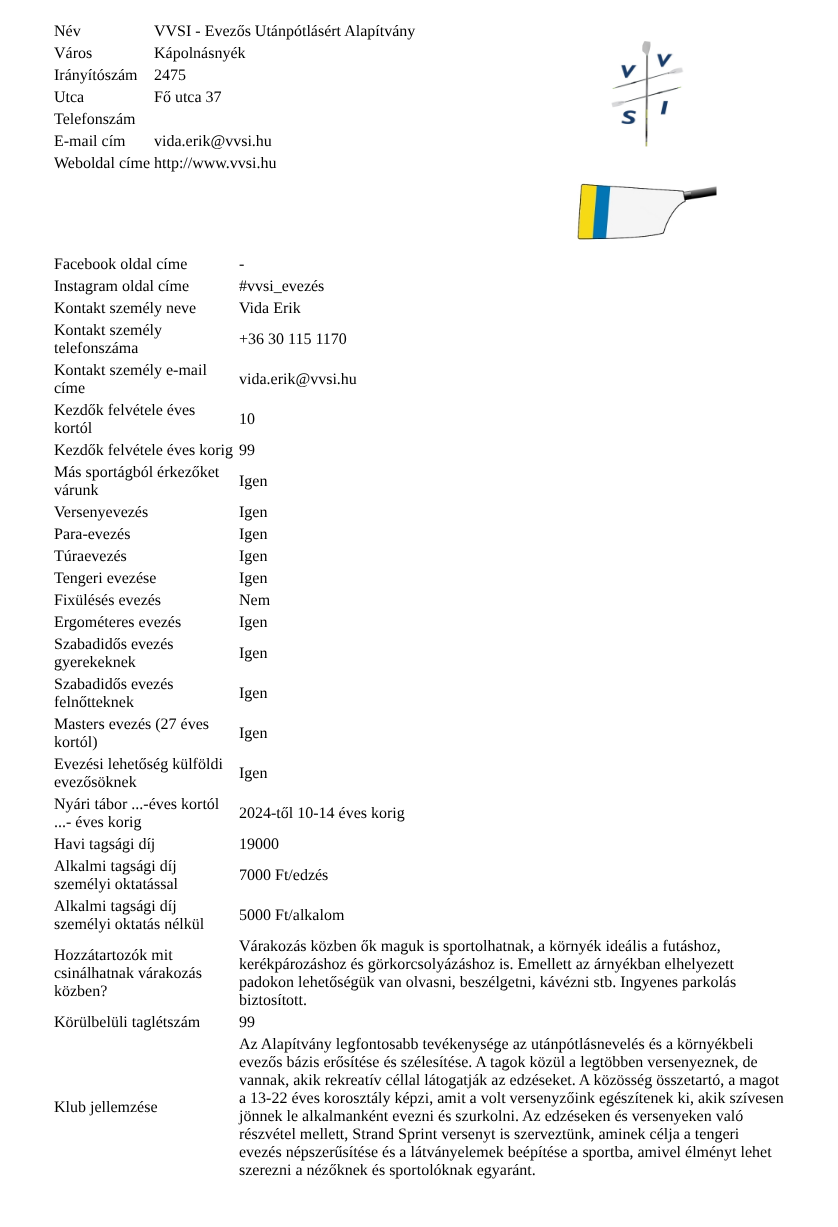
(async () => {
    const canvas = document.querySelector("canvas");
    canvas.width = 838;
    canvas.height = 1227;
    const context = canvas.getContext("2d");
    context.miterLimit = 4;
    context.fontKerning = "normal";
    function write(s, x, y, font, color) {
        context.font = font;
        context.fillStyle = color;
        context.fillText(s, x, y);
    }
    function block(x, y, w, h, color) {
        context.fillStyle = color;
        context.fillRect(x, y, w, h);
    }
    async function photo(src, x, y, w, h) {
        const img = new Image();
        img.src = src;
        await img.decode();
        context.drawImage(img, x, y, w, h);
    }

    block(0, 0, 838, 1227, "rgb(255, 255, 255)");
    write("Név", 54, 36, "16px Liberation Serif", "rgb(0, 0, 0)");
    write("VVSI - Evezős Utánpótlásért Alapítvány", 154, 36, "16px Liberation Serif", "rgb(0, 0, 0)");
    write("Város", 54, 58, "16px Liberation Serif", "rgb(0, 0, 0)");
    write("Kápolnásnyék", 154, 58, "16px Liberation Serif", "rgb(0, 0, 0)");
    write("Irányítószám", 54, 80, "16px Liberation Serif", "rgb(0, 0, 0)");
    write("2475", 154, 80, "16px Liberation Serif", "rgb(0, 0, 0)");
    write("Utca", 54, 102, "16px Liberation Serif", "rgb(0, 0, 0)");
    write("Fő utca 37", 154, 102, "16px Liberation Serif", "rgb(0, 0, 0)");
    write("Telefonszám", 54, 124, "16px Liberation Serif", "rgb(0, 0, 0)");
    write("E-mail cím", 54, 146, "16px Liberation Serif", "rgb(0, 0, 0)");
    write("vida.erik@vvsi.hu", 154, 146, "16px Liberation Serif", "rgb(0, 0, 0)");
    write("Weboldal címe http://www.vvsi.hu", 54, 168, "16px Liberation Serif", "rgb(0, 0, 0)");
    await photo("media/1.png", 611, 41, 73, 106);
    await photo("media/2.png", 577, 183, 140, 57);
    write("Facebook oldal címe", 54, 269, "16px Liberation Serif", "rgb(0, 0, 0)");
    write("-", 239, 269, "16px Liberation Serif", "rgb(0, 0, 0)");
    write("Instagram oldal címe", 54, 291, "16px Liberation Serif", "rgb(0, 0, 0)");
    write("#vvsi_evezés", 239, 291, "16px Liberation Serif", "rgb(0, 0, 0)");
    write("Kontakt személy neve", 54, 313, "16px Liberation Serif", "rgb(0, 0, 0)");
    write("Vida Erik", 239, 313, "16px Liberation Serif", "rgb(0, 0, 0)");
    write("Kontakt személy", 54, 335, "16px Liberation Serif", "rgb(0, 0, 0)");
    write("telefonszáma", 54, 353, "16px Liberation Serif", "rgb(0, 0, 0)");
    write("+36 30 115 1170", 239, 344, "16px Liberation Serif", "rgb(0, 0, 0)");
    write("Kontakt személy e-mail", 54, 375, "16px Liberation Serif", "rgb(0, 0, 0)");
    write("címe", 54, 393, "16px Liberation Serif", "rgb(0, 0, 0)");
    write("vida.erik@vvsi.hu", 239, 384, "16px Liberation Serif", "rgb(0, 0, 0)");
    write("Kezdők felvétele éves", 54, 415, "16px Liberation Serif", "rgb(0, 0, 0)");
    write("kortól", 54, 433, "16px Liberation Serif", "rgb(0, 0, 0)");
    write("10", 239, 424, "16px Liberation Serif", "rgb(0, 0, 0)");
    write("Kezdők felvétele éves korig", 54, 455, "16px Liberation Serif", "rgb(0, 0, 0)");
    write("99", 239, 455, "16px Liberation Serif", "rgb(0, 0, 0)");
    write("Más sportágból érkezőket", 54, 477, "16px Liberation Serif", "rgb(0, 0, 0)");
    write("várunk", 54, 495, "16px Liberation Serif", "rgb(0, 0, 0)");
    write("Igen", 239, 486, "16px Liberation Serif", "rgb(0, 0, 0)");
    write("Versenyevezés", 54, 517, "16px Liberation Serif", "rgb(0, 0, 0)");
    write("Igen", 239, 517, "16px Liberation Serif", "rgb(0, 0, 0)");
    write("Para-evezés", 54, 539, "16px Liberation Serif", "rgb(0, 0, 0)");
    write("Igen", 239, 539, "16px Liberation Serif", "rgb(0, 0, 0)");
    write("Túraevezés", 54, 561, "16px Liberation Serif", "rgb(0, 0, 0)");
    write("Igen", 239, 561, "16px Liberation Serif", "rgb(0, 0, 0)");
    write("Tengeri evezése", 54, 583, "16px Liberation Serif", "rgb(0, 0, 0)");
    write("Igen", 239, 583, "16px Liberation Serif", "rgb(0, 0, 0)");
    write("Fixülésés evezés", 54, 605, "16px Liberation Serif", "rgb(0, 0, 0)");
    write("Nem", 239, 605, "16px Liberation Serif", "rgb(0, 0, 0)");
    write("Ergométeres evezés", 54, 627, "16px Liberation Serif", "rgb(0, 0, 0)");
    write("Igen", 239, 627, "16px Liberation Serif", "rgb(0, 0, 0)");
    write("Szabadidős evezés", 54, 649, "16px Liberation Serif", "rgb(0, 0, 0)");
    write("gyerekeknek", 54, 667, "16px Liberation Serif", "rgb(0, 0, 0)");
    write("Igen", 239, 658, "16px Liberation Serif", "rgb(0, 0, 0)");
    write("Szabadidős evezés", 54, 689, "16px Liberation Serif", "rgb(0, 0, 0)");
    write("felnőtteknek", 54, 707, "16px Liberation Serif", "rgb(0, 0, 0)");
    write("Igen", 239, 698, "16px Liberation Serif", "rgb(0, 0, 0)");
    write("Masters evezés (27 éves", 54, 729, "16px Liberation Serif", "rgb(0, 0, 0)");
    write("kortól)", 54, 747, "16px Liberation Serif", "rgb(0, 0, 0)");
    write("Igen", 239, 738, "16px Liberation Serif", "rgb(0, 0, 0)");
    write("Evezési lehetőség külföldi", 54, 769, "16px Liberation Serif", "rgb(0, 0, 0)");
    write("evezősöknek", 54, 787, "16px Liberation Serif", "rgb(0, 0, 0)");
    write("Igen", 239, 778, "16px Liberation Serif", "rgb(0, 0, 0)");
    write("Nyári tábor ...-éves kortól", 54, 809, "16px Liberation Serif", "rgb(0, 0, 0)");
    write("...- éves korig", 54, 827, "16px Liberation Serif", "rgb(0, 0, 0)");
    write("2024-től 10-14 éves korig", 239, 818, "16px Liberation Serif", "rgb(0, 0, 0)");
    write("Havi tagsági díj", 54, 849, "16px Liberation Serif", "rgb(0, 0, 0)");
    write("19000", 239, 849, "16px Liberation Serif", "rgb(0, 0, 0)");
    write("Alkalmi tagsági díj", 54, 871, "16px Liberation Serif", "rgb(0, 0, 0)");
    write("személyi oktatással", 54, 889, "16px Liberation Serif", "rgb(0, 0, 0)");
    write("7000 Ft/edzés", 239, 880, "16px Liberation Serif", "rgb(0, 0, 0)");
    write("Alkalmi tagsági díj", 54, 911, "16px Liberation Serif", "rgb(0, 0, 0)");
    write("személyi oktatás nélkül", 54, 929, "16px Liberation Serif", "rgb(0, 0, 0)");
    write("5000 Ft/alkalom", 239, 920, "16px Liberation Serif", "rgb(0, 0, 0)");
    write("Hozzátartozók mit", 54, 960, "16px Liberation Serif", "rgb(0, 0, 0)");
    write("csinálhatnak várakozás", 54, 978, "16px Liberation Serif", "rgb(0, 0, 0)");
    write("közben?", 54, 996, "16px Liberation Serif", "rgb(0, 0, 0)");
    write("Várakozás közben ők maguk is sportolhatnak, a környék ideális a futáshoz,", 239, 951, "16px Liberation Serif", "rgb(0, 0, 0)");
    write("kerékpározáshoz és görkorcsolyázáshoz is. Emellett az árnyékban elhelyezett", 239, 969, "16px Liberation Serif", "rgb(0, 0, 0)");
    write("padokon lehetőségük van olvasni, beszélgetni, kávézni stb. Ingyenes parkolás", 239, 987, "16px Liberation Serif", "rgb(0, 0, 0)");
    write("biztosított.", 239, 1005, "16px Liberation Serif", "rgb(0, 0, 0)");
    write("Körülbelüli taglétszám", 54, 1027, "16px Liberation Serif", "rgb(0, 0, 0)");
    write("99", 239, 1027, "16px Liberation Serif", "rgb(0, 0, 0)");
    write("Klub jellemzése", 54, 1112, "16px Liberation Serif", "rgb(0, 0, 0)");
    write("Az Alapítvány legfontosabb tevékenysége az utánpótlásnevelés és a környékbeli", 239, 1049, "16px Liberation Serif", "rgb(0, 0, 0)");
    write("evezős bázis erősítése és szélesítése. A tagok közül a legtöbben versenyeznek, de", 239, 1067, "16px Liberation Serif", "rgb(0, 0, 0)");
    write("vannak, akik rekreatív céllal látogatják az edzéseket. A közösség összetartó, a magot", 239, 1085, "16px Liberation Serif", "rgb(0, 0, 0)");
    write("a 13-22 éves korosztály képzi, amit a volt versenyzőink egészítenek ki, akik szívesen", 239, 1103, "16px Liberation Serif", "rgb(0, 0, 0)");
    write("jönnek le alkalmanként evezni és szurkolni. Az edzéseken és versenyeken való", 239, 1121, "16px Liberation Serif", "rgb(0, 0, 0)");
    write("részvétel mellett, Strand Sprint versenyt is szerveztünk, aminek célja a tengeri", 239, 1139, "16px Liberation Serif", "rgb(0, 0, 0)");
    write("evezés népszerűsítése és a látványelemek beépítése a sportba, amivel élményt lehet", 239, 1157, "16px Liberation Serif", "rgb(0, 0, 0)");
    write("szerezni a nézőknek és sportolóknak egyaránt.", 239, 1175, "16px Liberation Serif", "rgb(0, 0, 0)");
})();
